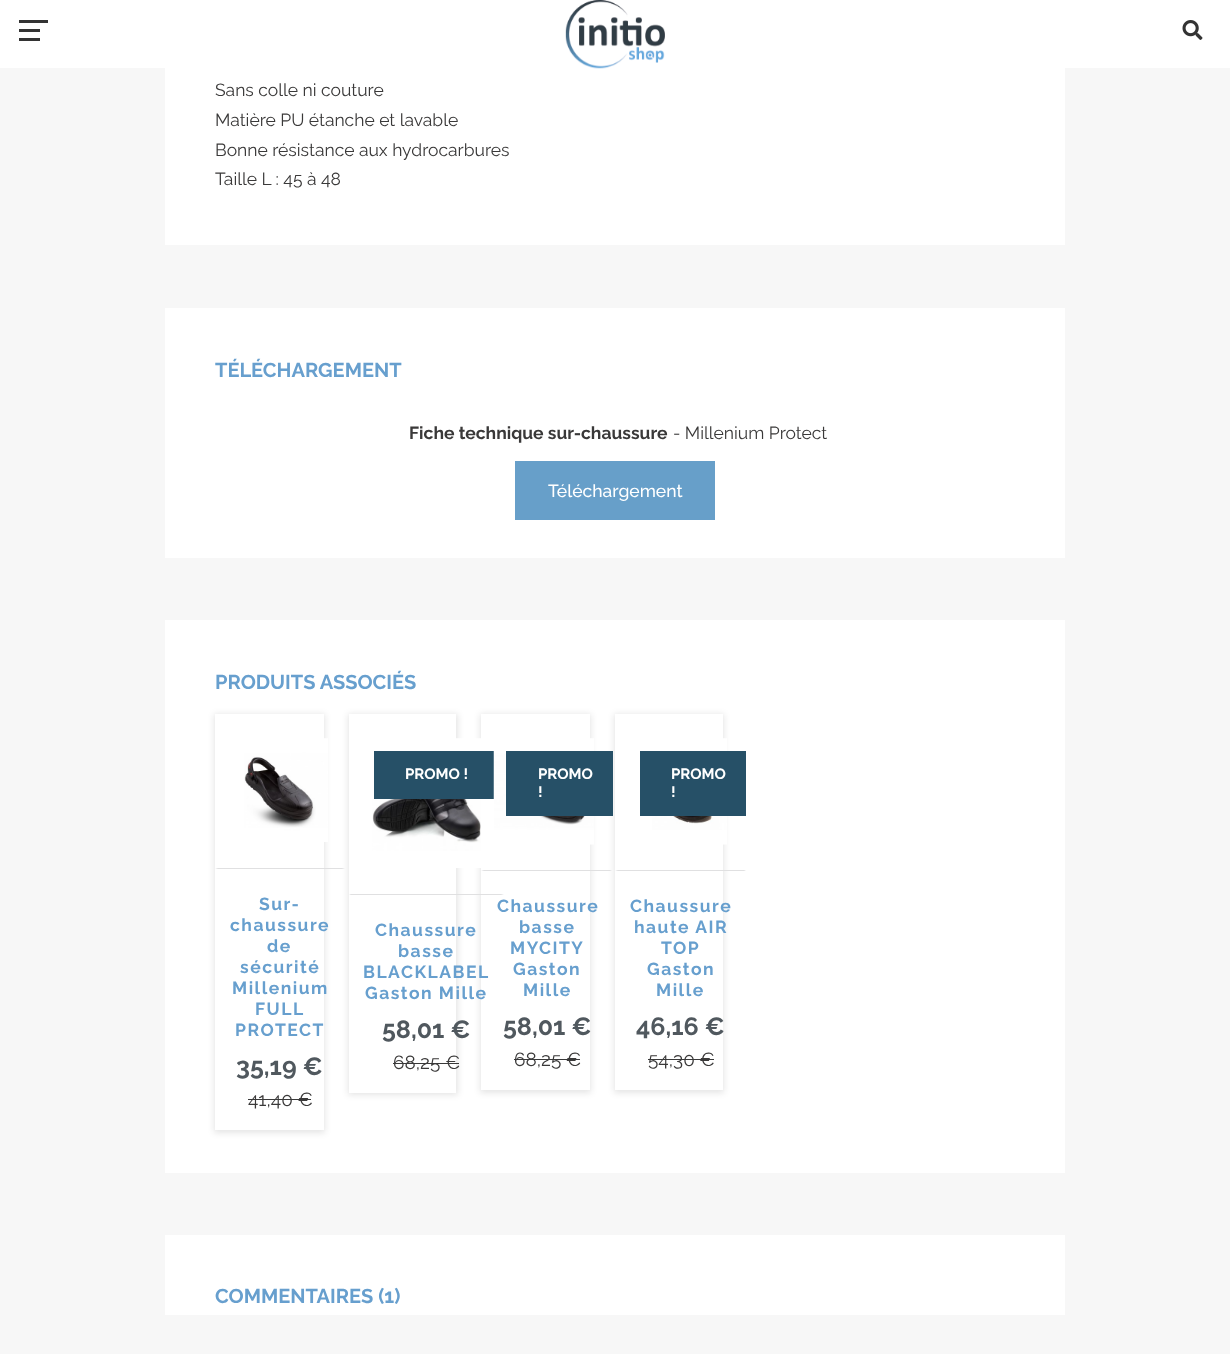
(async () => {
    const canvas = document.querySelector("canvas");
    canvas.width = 1230;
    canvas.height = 1354;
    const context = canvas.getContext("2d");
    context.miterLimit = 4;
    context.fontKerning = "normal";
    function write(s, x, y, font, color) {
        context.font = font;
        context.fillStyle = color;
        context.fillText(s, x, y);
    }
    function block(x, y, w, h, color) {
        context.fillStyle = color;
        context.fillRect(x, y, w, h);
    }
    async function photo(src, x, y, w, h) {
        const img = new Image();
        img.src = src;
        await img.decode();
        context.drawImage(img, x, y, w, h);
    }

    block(0, 0, 1230, 1354, "rgb(247, 247, 247)");
    block(165, 68, 900, 177, "rgb(255, 255, 255)");
    context.fillStyle = "rgba(0, 0, 0, 0.3)";
    context.filter = "blur(0.5px)";
    context.beginPath();
    context.rect(0, 0, 1230, 68);
    context.fill();
    context.filter = "none";
    block(0, 0, 1230, 68, "rgb(255, 255, 255)");
    block(19, 29, 21, 3, "rgb(51, 51, 51)");
    block(19, 20, 29, 3, "rgb(51, 51, 51)");
    block(19, 38, 21, 3, "rgb(51, 51, 51)");
    await photo("media/1.png", 565, 0, 100, 69);
    await photo("media/2.png", 1182, 20, 21, 20);
    write("Sans colle ni couture", 215, 96, "17.5px Raleway", "rgb(58, 57, 57)");
    write("Matière PU étanche et lavable", 215, 126, "17.5px Raleway", "rgb(58, 57, 57)");
    write("Bonne résistance aux hydrocarbures", 215, 156, "17.5px Raleway", "rgb(58, 57, 57)");
    write("Taille L : 45 à 48", 215, 185, "17.5px Raleway", "rgb(58, 57, 57)");
    block(165, 308, 900, 250, "rgb(255, 255, 255)");
    write("TÉLÉCHARGEMENT", 215, 377, "bold 20px Raleway", "rgb(103, 159, 206)");
    write("Fiche technique sur-chaussure", 409, 439, "bold 17.5px Raleway", "rgb(58, 57, 57)");
    write("- Millenium Protect", 673, 439, "17.5px Raleway", "rgb(58, 57, 57)");
    block(515, 461, 200, 59, "rgb(103, 159, 201)");
    write("Téléchargement", 548, 497, "500 17.5px Raleway", "rgb(255, 255, 255)");
    block(165, 620, 900, 553, "rgb(255, 255, 255)");
    write("PRODUITS ASSOCIÉS", 215, 689, "bold 20px Raleway", "rgb(103, 159, 206)");
    context.fillStyle = "rgba(0, 0, 0, 0.1)";
    context.filter = "blur(3px)";
    context.beginPath();
    context.rect(214, 714, 111, 419);
    context.fill();
    context.filter = "none";
    block(215, 714, 109, 416, "rgb(255, 255, 255)");
    await photo("media/3.png", 244, 738, 84, 104);
    context.fillStyle = "rgba(0, 0, 0, 0.1)";
    context.filter = "blur(3px)";
    context.beginPath();
    context.rect(348, 714, 110, 381);
    context.fill();
    context.filter = "none";
    context.fillStyle = "rgb(224, 224, 225)";
    context.beginPath();
    context.moveTo(215, 868);
    context.lineTo(345, 868);
    context.lineTo(342, 869);
    context.lineTo(218, 869);
    context.closePath();
    context.fill();
    context.letterSpacing = "1.5px";
    write("Sur-", 259, 910, "bold 17.5px Raleway", "rgb(103, 159, 206)");
    write("chaussure", 230, 931, "bold 17.5px Raleway", "rgb(103, 159, 206)");
    write("de", 267, 952, "bold 17.5px Raleway", "rgb(103, 159, 206)");
    write("sécurité", 240, 973, "bold 17.5px Raleway", "rgb(103, 159, 206)");
    write("Millenium", 232, 994, "bold 17.5px Raleway", "rgb(103, 159, 206)");
    write("FULL", 255, 1015, "bold 17.5px Raleway", "rgb(103, 159, 206)");
    write("PROTECT", 235, 1036, "bold 17.5px Raleway", "rgb(103, 159, 206)");
    context.letterSpacing = "0px";
    write("35,19 €", 236, 1075, "bold 25px Raleway", "rgb(80, 88, 94)");
    write("41,40 €", 248, 1106, "19px Raleway", "rgb(58, 57, 57)");
    block(248, 1099, 63, 1, "rgb(57, 57, 57)");
    block(349, 714, 107, 379, "rgb(255, 255, 255)");
    context.fillStyle = "rgba(0, 0, 0, 0.1)";
    context.filter = "blur(3px)";
    context.beginPath();
    context.rect(480, 714, 111, 379);
    context.fill();
    context.filter = "none";
    await photo("media/4.png", 372, 738, 109, 130);
    block(481, 714, 109, 376, "rgb(255, 255, 255)");
    block(374, 751, 120, 48, "rgb(38, 80, 103)");
    write("PROMO !", 405, 779, "bold 15px Raleway", "rgb(255, 255, 255)");
    context.fillStyle = "rgb(224, 224, 225)";
    context.beginPath();
    context.moveTo(349, 894);
    context.lineTo(504, 894);
    context.lineTo(501, 895);
    context.lineTo(351, 895);
    context.closePath();
    context.fill();
    context.letterSpacing = "1.5px";
    write("Chaussure", 375, 936, "bold 17.5px Raleway", "rgb(103, 159, 206)");
    write("basse", 398, 957, "bold 17.5px Raleway", "rgb(103, 159, 206)");
    write("BLACKLABEL", 363, 978, "bold 17.5px Raleway", "rgb(103, 159, 206)");
    write("Gaston Mille", 365, 999, "bold 17.5px Raleway", "rgb(103, 159, 206)");
    context.letterSpacing = "0px";
    write("58,01 €", 382, 1038, "bold 25px Raleway", "rgb(80, 88, 94)");
    write("68,25 €", 393, 1069, "19px Raleway", "rgb(58, 57, 57)");
    block(393, 1063, 66, 1, "rgb(57, 57, 57)");
    await photo("media/5.png", 493, 738, 101, 107);
    context.fillStyle = "rgba(0, 0, 0, 0.1)";
    context.filter = "blur(3px)";
    context.beginPath();
    context.rect(614, 714, 110, 379);
    context.fill();
    context.filter = "none";
    block(506, 751, 107, 65, "rgb(38, 80, 103)");
    write("PROMO", 538, 779, "bold 15px Raleway", "rgb(255, 255, 255)");
    write("!", 538, 797, "bold 15px Raleway", "rgb(255, 255, 255)");
    context.fillStyle = "rgb(224, 224, 225)";
    context.beginPath();
    context.moveTo(481, 870);
    context.lineTo(612, 870);
    context.lineTo(610, 871);
    context.lineTo(484, 871);
    context.closePath();
    context.fill();
    context.letterSpacing = "1.5px";
    write("Chaussure", 497, 912, "bold 17.5px Raleway", "rgb(103, 159, 206)");
    write("basse", 519, 933, "bold 17.5px Raleway", "rgb(103, 159, 206)");
    write("MYCITY", 510, 954, "bold 17.5px Raleway", "rgb(103, 159, 206)");
    write("Gaston", 513, 975, "bold 17.5px Raleway", "rgb(103, 159, 206)");
    write("Mille", 523, 996, "bold 17.5px Raleway", "rgb(103, 159, 206)");
    context.letterSpacing = "0px";
    write("58,01 €", 503, 1035, "bold 25px Raleway", "rgb(80, 88, 94)");
    write("68,25 €", 514, 1066, "19px Raleway", "rgb(58, 57, 57)");
    block(514, 1059, 66, 1, "rgb(57, 57, 57)");
    block(615, 714, 108, 376, "rgb(255, 255, 255)");
    await photo("media/6.png", 652, 738, 75, 107);
    block(640, 751, 106, 65, "rgb(38, 80, 103)");
    write("PROMO", 671, 779, "bold 15px Raleway", "rgb(255, 255, 255)");
    write("!", 671, 797, "bold 15px Raleway", "rgb(255, 255, 255)");
    context.fillStyle = "rgb(224, 224, 225)";
    context.beginPath();
    context.moveTo(615, 870);
    context.lineTo(746, 870);
    context.lineTo(744, 871);
    context.lineTo(618, 871);
    context.closePath();
    context.fill();
    context.letterSpacing = "1.5px";
    write("Chaussure", 630, 912, "bold 17.5px Raleway", "rgb(103, 159, 206)");
    write("haute AIR", 634, 933, "bold 17.5px Raleway", "rgb(103, 159, 206)");
    write("TOP", 661, 954, "bold 17.5px Raleway", "rgb(103, 159, 206)");
    write("Gaston", 647, 975, "bold 17.5px Raleway", "rgb(103, 159, 206)");
    write("Mille", 656, 996, "bold 17.5px Raleway", "rgb(103, 159, 206)");
    context.letterSpacing = "0px";
    write("46,16 €", 636, 1035, "bold 25px Raleway", "rgb(80, 88, 94)");
    write("54,30 €", 648, 1066, "19px Raleway", "rgb(58, 57, 57)");
    block(648, 1059, 66, 1, "rgb(57, 57, 57)");
    block(165, 1235, 900, 80, "rgb(255, 255, 255)");
    write("COMMENTAIRES (1)", 215, 1303, "bold 20px Raleway", "rgb(103, 159, 206)");
})();
